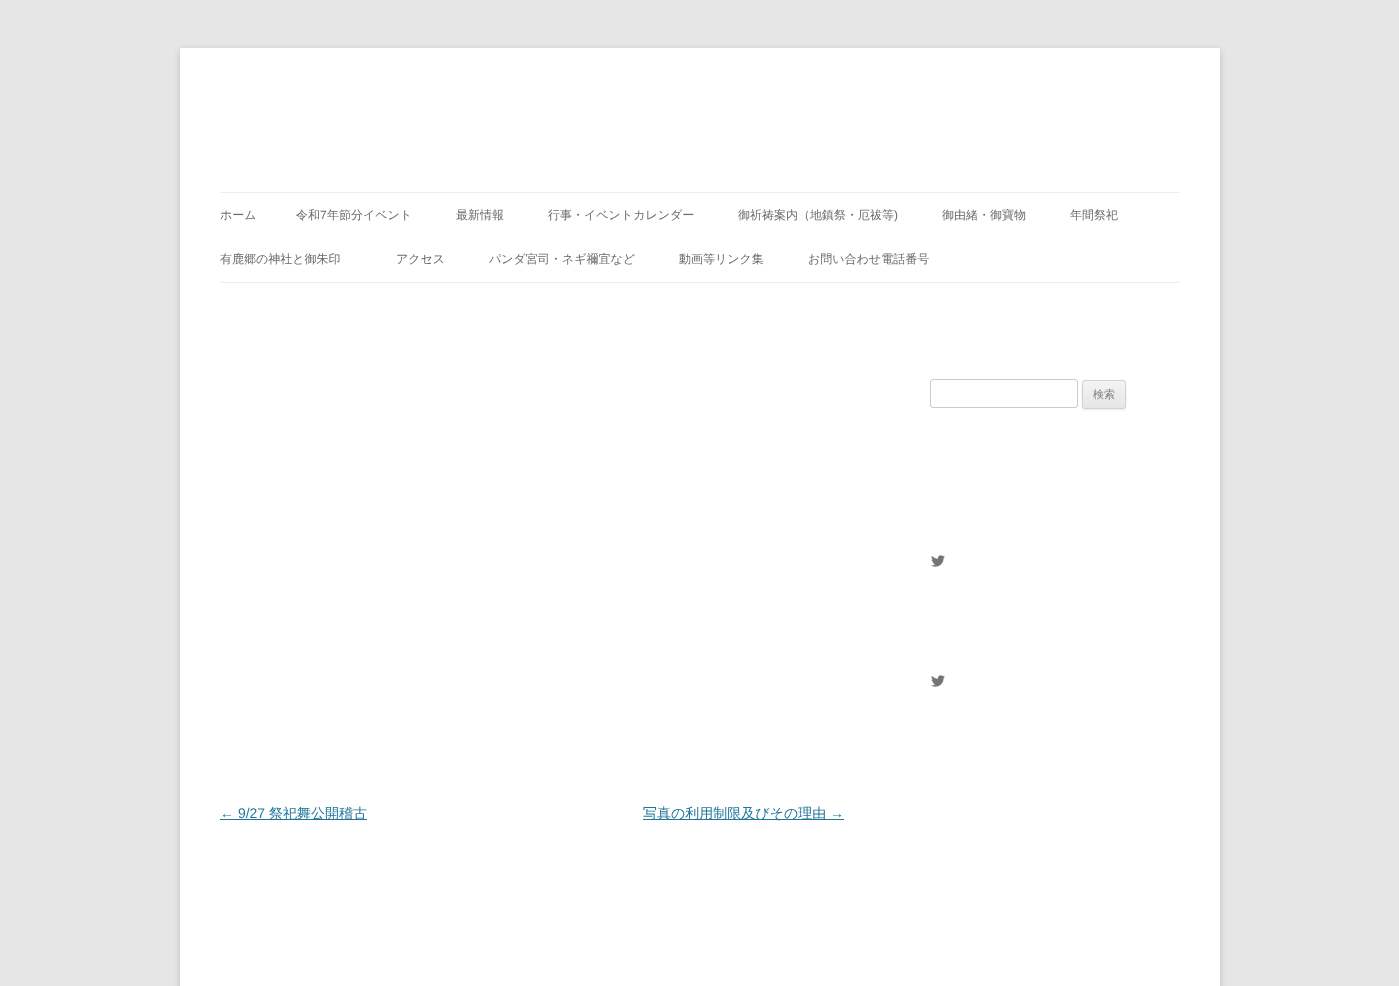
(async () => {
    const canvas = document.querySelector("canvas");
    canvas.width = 1399;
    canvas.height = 986;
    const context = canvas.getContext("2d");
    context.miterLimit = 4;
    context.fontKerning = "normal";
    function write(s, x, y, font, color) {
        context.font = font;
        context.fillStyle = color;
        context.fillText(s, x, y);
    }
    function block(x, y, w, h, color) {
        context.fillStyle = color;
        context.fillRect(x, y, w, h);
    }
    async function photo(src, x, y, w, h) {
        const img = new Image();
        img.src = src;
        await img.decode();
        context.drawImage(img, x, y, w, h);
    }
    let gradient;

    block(0, 0, 1399, 986, "rgb(230, 230, 230)");
    context.fillStyle = "rgba(100, 100, 100, 0.3)";
    context.filter = "blur(3px)";
    context.beginPath();
    context.rect(180, 50, 1040, 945);
    context.fill();
    context.filter = "none";
    block(180, 48, 1040, 938, "rgb(255, 255, 255)");
    block(220, 192, 960, 1, "rgb(237, 237, 237)");
    block(220, 282, 960, 1, "rgb(237, 237, 237)");
    write("ホーム", 220, 219, "500 12px WenQuanYi Zen Hei", "rgb(106, 106, 106)");
    write("令和", 296, 219, "500 12px WenQuanYi Zen Hei", "rgb(106, 106, 106)");
    write("7", 320, 219, "12px Liberation Sans", "rgb(106, 106, 106)");
    write("年節分イベント", 327, 219, "500 12px WenQuanYi Zen Hei", "rgb(106, 106, 106)");
    write("最新情報", 456, 219, "500 12px WenQuanYi Zen Hei", "rgb(106, 106, 106)");
    write("行事・イベントカレンダー", 548, 219, "500 12px WenQuanYi Zen Hei", "rgb(106, 106, 106)");
    write("御祈祷案内（地鎮祭・厄祓等", 738, 219, "500 12px WenQuanYi Zen Hei", "rgb(106, 106, 106)");
    write(")", 894, 219, "12px Liberation Sans", "rgb(106, 106, 106)");
    write("御由緒・御寶物", 942, 219, "500 12px WenQuanYi Zen Hei", "rgb(106, 106, 106)");
    write("年間祭祀", 1070, 219, "500 12px WenQuanYi Zen Hei", "rgb(106, 106, 106)");
    write("有鹿郷の神社と御朱印", 220, 263, "500 12px WenQuanYi Zen Hei", "rgb(106, 106, 106)");
    write("アクセス", 396, 263, "500 12px WenQuanYi Zen Hei", "rgb(106, 106, 106)");
    write("パンダ宮司・ネギ禰宜など", 489, 263, "500 12px WenQuanYi Zen Hei", "rgb(106, 106, 106)");
    write("動画等リンク集", 679, 263, "500 12px WenQuanYi Zen Hei", "rgb(106, 106, 106)");
    write("お問い合わせ電話番号", 808, 263, "500 12px WenQuanYi Zen Hei", "rgb(106, 106, 106)");
    context.beginPath();
    context.roundRect(930.5, 379.5, 147, 28, 2.5);
    context.strokeStyle = "rgb(204, 204, 204)";
    context.stroke();
    context.fillStyle = "rgba(64, 64, 64, 0.1)";
    context.filter = "blur(1px)";
    context.beginPath();
    context.roundRect(1082, 381, 44, 29, 3);
    context.fill();
    context.filter = "none";
    context.save();
    context.beginPath();
    context.roundRect(1082, 380, 44, 29, 3);
    context.clip();
    gradient = context.createLinearGradient(1104, 381, 1104, 408);
    gradient.addColorStop(0, "rgb(244, 244, 244)");
    gradient.addColorStop(1, "rgb(230, 230, 230)");
    context.fillStyle = gradient;
    context.fillRect(1082, 381, 44, 27);
    context.restore();
    context.beginPath();
    context.roundRect(1082.5, 380.5, 43, 28, 2.5);
    context.strokeStyle = "rgb(210, 210, 210)";
    context.stroke();
    write("検索", 1093, 398, "500 11px WenQuanYi Zen Hei", "rgb(124, 124, 124)");
    await photo("media/1.png", 931, 555, 14, 12);
    await photo("media/1.png", 931, 675, 14, 12);
    write("← 9/27", 220, 818, "14px Liberation Sans", "rgb(33, 117, 155)");
    block(220, 819, 147, 1, "rgb(33, 117, 155)");
    write("祭祀舞公開稽古", 269, 818, "500 14px WenQuanYi Zen Hei", "rgb(33, 117, 155)");
    block(643, 819, 201, 1, "rgb(33, 117, 155)");
    write("写真の利用制限及びその理由", 643, 818, "500 14px WenQuanYi Zen Hei", "rgb(33, 117, 155)");
    write("→", 830, 818, "14px Liberation Sans", "rgb(33, 117, 155)");
})();
